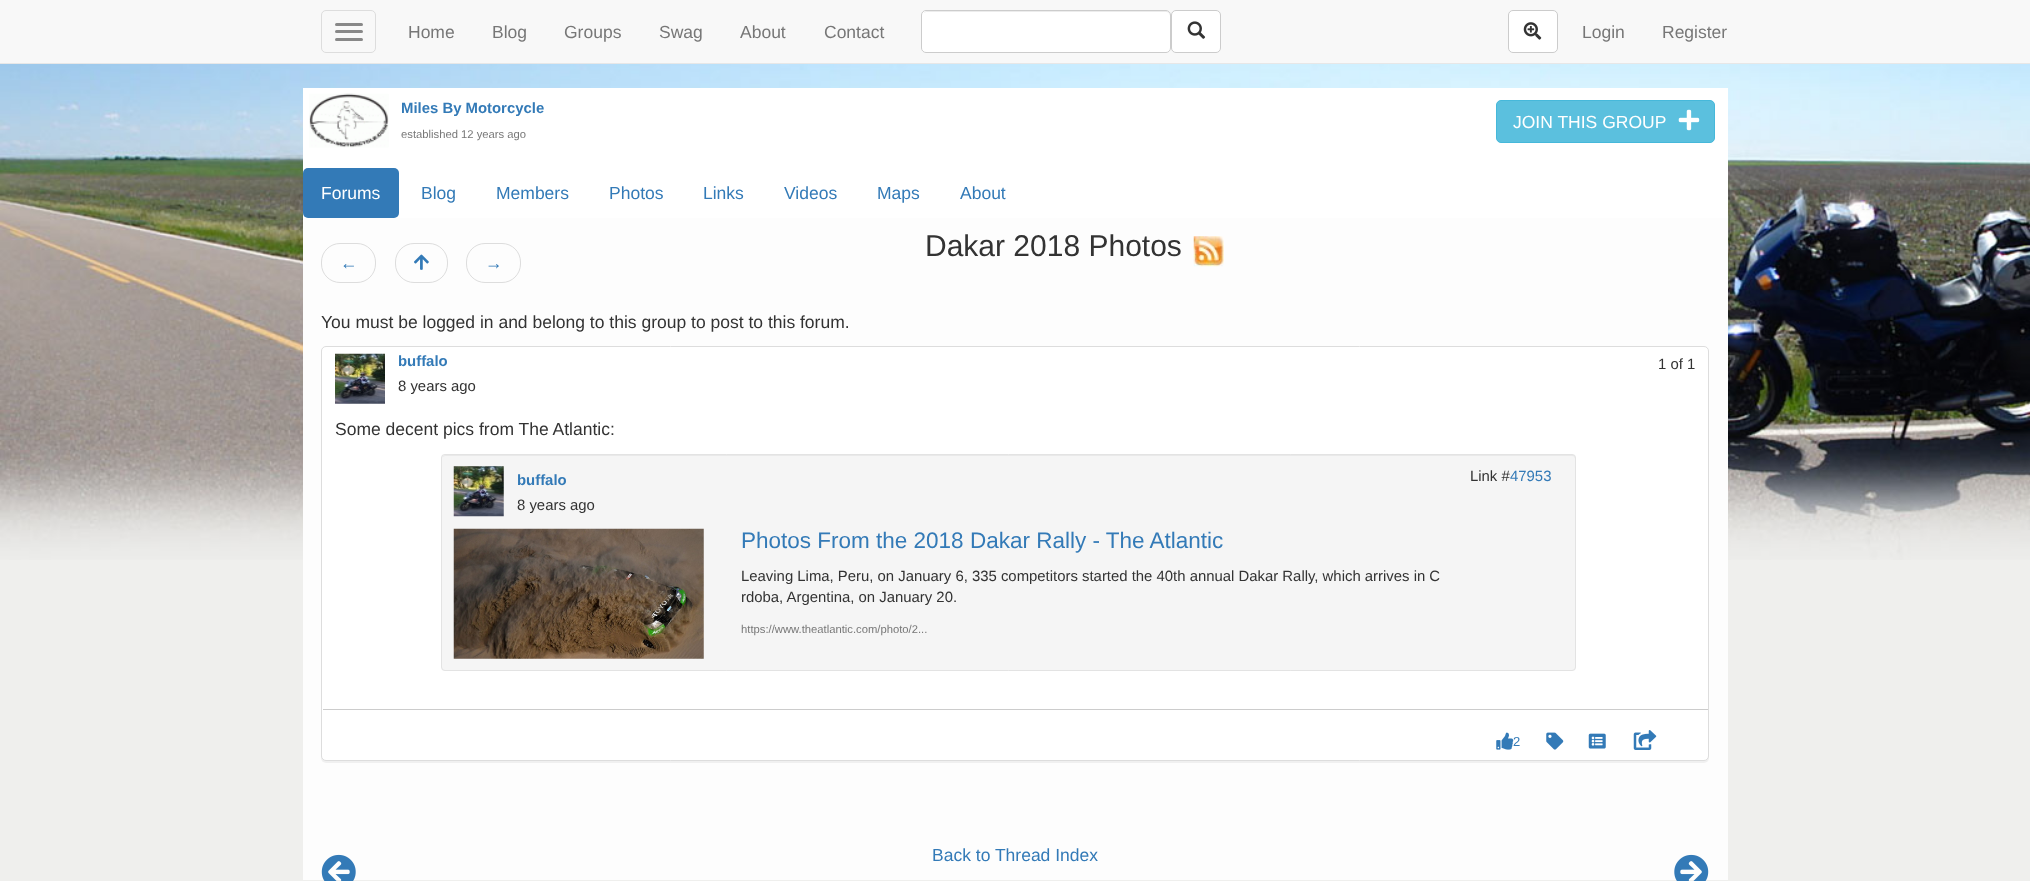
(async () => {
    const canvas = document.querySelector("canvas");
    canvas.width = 2030;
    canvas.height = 881;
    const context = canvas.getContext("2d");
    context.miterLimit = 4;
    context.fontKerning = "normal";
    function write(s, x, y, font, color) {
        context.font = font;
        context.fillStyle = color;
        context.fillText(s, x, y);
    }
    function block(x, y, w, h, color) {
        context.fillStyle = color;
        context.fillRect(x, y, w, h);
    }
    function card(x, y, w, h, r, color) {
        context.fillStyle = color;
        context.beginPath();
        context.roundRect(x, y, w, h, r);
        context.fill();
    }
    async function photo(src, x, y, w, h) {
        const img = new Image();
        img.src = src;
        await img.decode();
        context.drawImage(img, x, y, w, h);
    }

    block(0, 0, 2030, 881, "rgb(239, 239, 237)");
    await photo("media/1.png", 0, 64, 2030, 496);
    block(0, 0, 2030, 63, "rgb(248, 248, 248)");
    block(0, 63, 2030, 1, "rgb(231, 231, 231)");
    context.beginPath();
    context.roundRect(321.5, 10.5, 54, 42, 4.5);
    context.strokeStyle = "rgb(221, 221, 221)";
    context.stroke();
    card(335, 23, 28, 3, 1.5, "rgb(136, 136, 136)");
    card(335, 30, 28, 3, 1.5, "rgb(136, 136, 136)");
    card(335, 38, 28, 3, 1.5, "rgb(136, 136, 136)");
    write("Home", 408, 38, "17.5px Liberation Sans", "rgb(119, 119, 119)");
    write("Blog", 492, 38, "17.5px Liberation Sans", "rgb(119, 119, 119)");
    write("Groups", 564, 38, "17.5px Liberation Sans", "rgb(119, 119, 119)");
    write("Swag", 659, 38, "17.5px Liberation Sans", "rgb(119, 119, 119)");
    write("About", 740, 38, "17.5px Liberation Sans", "rgb(119, 119, 119)");
    write("Contact", 824, 38, "17.5px Liberation Sans", "rgb(119, 119, 119)");
    card(921, 10, 250, 43, 5, "rgb(255, 255, 255)");
    context.fillStyle = "rgb(236, 236, 236)";
    context.beginPath();
    context.moveTo(926, 12);
    context.lineTo(1166, 12);
    context.bezierCurveTo(1168, 12, 1170, 14, 1170, 16);
    context.lineTo(1170, 15);
    context.bezierCurveTo(1170, 13, 1168, 11, 1166, 11);
    context.lineTo(927, 11);
    context.bezierCurveTo(926, 11, 924, 12, 924, 13);
    context.closePath();
    context.fill();
    context.beginPath();
    context.roundRect(921.5, 10.5, 249, 42, 4.5);
    context.strokeStyle = "rgb(204, 204, 204)";
    context.stroke();
    context.fillStyle = "rgb(255, 255, 255)";
    context.beginPath();
    context.roundRect(1171.5, 10.5, 49, 42, 4.5);
    context.fill();
    context.stroke();
    await photo("media/2.png", 1187, 21, 19, 18);
    context.beginPath();
    context.roundRect(1508.5, 10.5, 49, 42, 4.5);
    context.fill();
    context.stroke();
    await photo("media/3.png", 1523, 22, 19, 18);
    write("Login", 1582, 38, "17.5px Liberation Sans", "rgb(119, 119, 119)");
    write("Register", 1662, 38, "17.5px Liberation Sans", "rgb(119, 119, 119)");
    block(303, 218, 1425, 662, "rgb(253, 253, 253)");
    block(303, 88, 1425, 130, "rgb(255, 255, 255)");
    await photo("media/4.png", 309, 93, 80, 55);
    write("Miles By Motorcycle", 401, 113, "bold 14.9px Liberation Sans", "rgb(51, 122, 183)");
    write("established 12 years ago", 401, 138, "11.25px Liberation Sans", "rgb(119, 119, 119)");
    context.fillStyle = "rgb(91, 192, 222)";
    context.beginPath();
    context.roundRect(1496.5, 100.5, 218, 42, 4.5);
    context.fill();
    context.strokeStyle = "rgb(70, 184, 218)";
    context.stroke();
    write("JOIN THIS GROUP", 1513, 128, "17.5px Liberation Sans", "rgb(255, 255, 255)");
    await photo("media/5.png", 1678, 109, 22, 22);
    card(303, 168, 96, 50, 5, "rgb(51, 122, 183)");
    write("Forums", 321, 199, "17.5px Liberation Sans", "rgb(255, 255, 255)");
    write("Blog", 421, 199, "17.5px Liberation Sans", "rgb(51, 122, 183)");
    write("Members", 496, 199, "17.5px Liberation Sans", "rgb(51, 122, 183)");
    write("Photos", 609, 199, "17.5px Liberation Sans", "rgb(51, 122, 183)");
    write("Links", 703, 199, "17.5px Liberation Sans", "rgb(51, 122, 183)");
    write("Videos", 784, 199, "17.5px Liberation Sans", "rgb(51, 122, 183)");
    write("Maps", 877, 199, "17.5px Liberation Sans", "rgb(51, 122, 183)");
    write("About", 960, 199, "17.5px Liberation Sans", "rgb(51, 122, 183)");
    write("Dakar 2018 Photos", 925, 256, "30px Liberation Sans", "rgb(51, 51, 51)");
    await photo("media/6.png", 1193, 236, 31, 31);
    context.beginPath();
    context.roundRect(321.5, 243.5, 54, 39, 18.5);
    context.strokeStyle = "rgb(221, 221, 221)";
    context.stroke();
    write("←", 340, 269, "17.5px Liberation Sans", "rgb(51, 122, 183)");
    context.beginPath();
    context.roundRect(395.5, 243.5, 52, 39, 18.5);
    context.stroke();
    await photo("media/7.png", 414, 254, 15, 16);
    context.beginPath();
    context.roundRect(466.5, 243.5, 54, 39, 18.5);
    context.stroke();
    write("→", 485, 269, "17.5px Liberation Sans", "rgb(51, 122, 183)");
    write("You must be logged in and belong to this group to post to this forum.", 321, 328, "17.5px Liberation Sans", "rgb(51, 51, 51)");
    context.fillStyle = "rgba(0, 0, 0, 0.05)";
    context.filter = "blur(0.5px)";
    context.beginPath();
    context.roundRect(321, 348, 1388, 415, 5);
    context.fill();
    context.filter = "none";
    context.fillStyle = "rgb(255, 255, 255)";
    context.beginPath();
    context.roundRect(321.5, 346.5, 1387, 414, 4.5);
    context.fill();
    context.stroke();
    await photo("media/8.png", 335, 353, 50, 51);
    write("buffalo", 398, 366, "bold 14.9px Liberation Sans", "rgb(51, 122, 183)");
    write("8 years ago", 398, 391, "14.9px Liberation Sans", "rgb(51, 51, 51)");
    write("1 of 1", 1658, 369, "14.9px Liberation Sans", "rgb(51, 51, 51)");
    write("Some decent pics from The Atlantic:", 335, 435, "17.5px Liberation Sans", "rgb(51, 51, 51)");
    card(441, 454, 1135, 217, 4, "rgb(245, 245, 245)");
    context.fillStyle = "rgb(233, 233, 233)";
    context.beginPath();
    context.moveTo(445, 456);
    context.lineTo(1572, 456);
    context.bezierCurveTo(1574, 456, 1575, 457, 1575, 459);
    context.lineTo(1575, 458);
    context.bezierCurveTo(1575, 456, 1574, 455, 1572, 455);
    context.lineTo(446, 455);
    context.bezierCurveTo(444, 455, 443, 456, 443, 457);
    context.closePath();
    context.fill();
    context.beginPath();
    context.roundRect(441.5, 454.5, 1134, 216, 3.5);
    context.strokeStyle = "rgb(227, 227, 227)";
    context.stroke();
    await photo("media/9.png", 453, 466, 51, 51);
    write("buffalo", 517, 485, "bold 14.9px Liberation Sans", "rgb(51, 122, 183)");
    write("8 years ago", 517, 510, "14.9px Liberation Sans", "rgb(51, 51, 51)");
    write("Link #", 1470, 481, "14.9px Liberation Sans", "rgb(51, 51, 51)");
    write("47953", 1510, 481, "14.9px Liberation Sans", "rgb(51, 122, 183)");
    await photo("media/10.png", 453, 528, 251, 131);
    write("Photos From the 2018 Dakar Rally - The Atlantic", 741, 548, "22.5px Liberation Sans", "rgb(51, 122, 183)");
    write("Leaving Lima, Peru, on January 6, 335 competitors started the 40th annual Dakar Rally, which arrives in C", 741, 581, "14.9px Liberation Sans", "rgb(51, 51, 51)");
    write("rdoba, Argentina, on January 20.", 741, 602, "14.9px Liberation Sans", "rgb(51, 51, 51)");
    write("https://www.theatlantic.com/photo/2...", 741, 633, "11.25px Liberation Sans", "rgb(119, 119, 119)");
    block(323, 709, 1385, 1, "rgb(204, 204, 204)");
    await photo("media/11.png", 1496, 732, 18, 18);
    write("2", 1513, 746, "13px Liberation Sans", "rgb(51, 122, 183)");
    await photo("media/12.png", 1546, 732, 18, 18);
    await photo("media/13.png", 1588, 733, 18, 16);
    await photo("media/14.png", 1633, 730, 24, 20);
    await photo("media/15.png", 321, 854, 35, 27);
    write("Back to Thread Index", 932, 861, "17.5px Liberation Sans", "rgb(51, 122, 183)");
    await photo("media/16.png", 1674, 854, 35, 27);
})();
